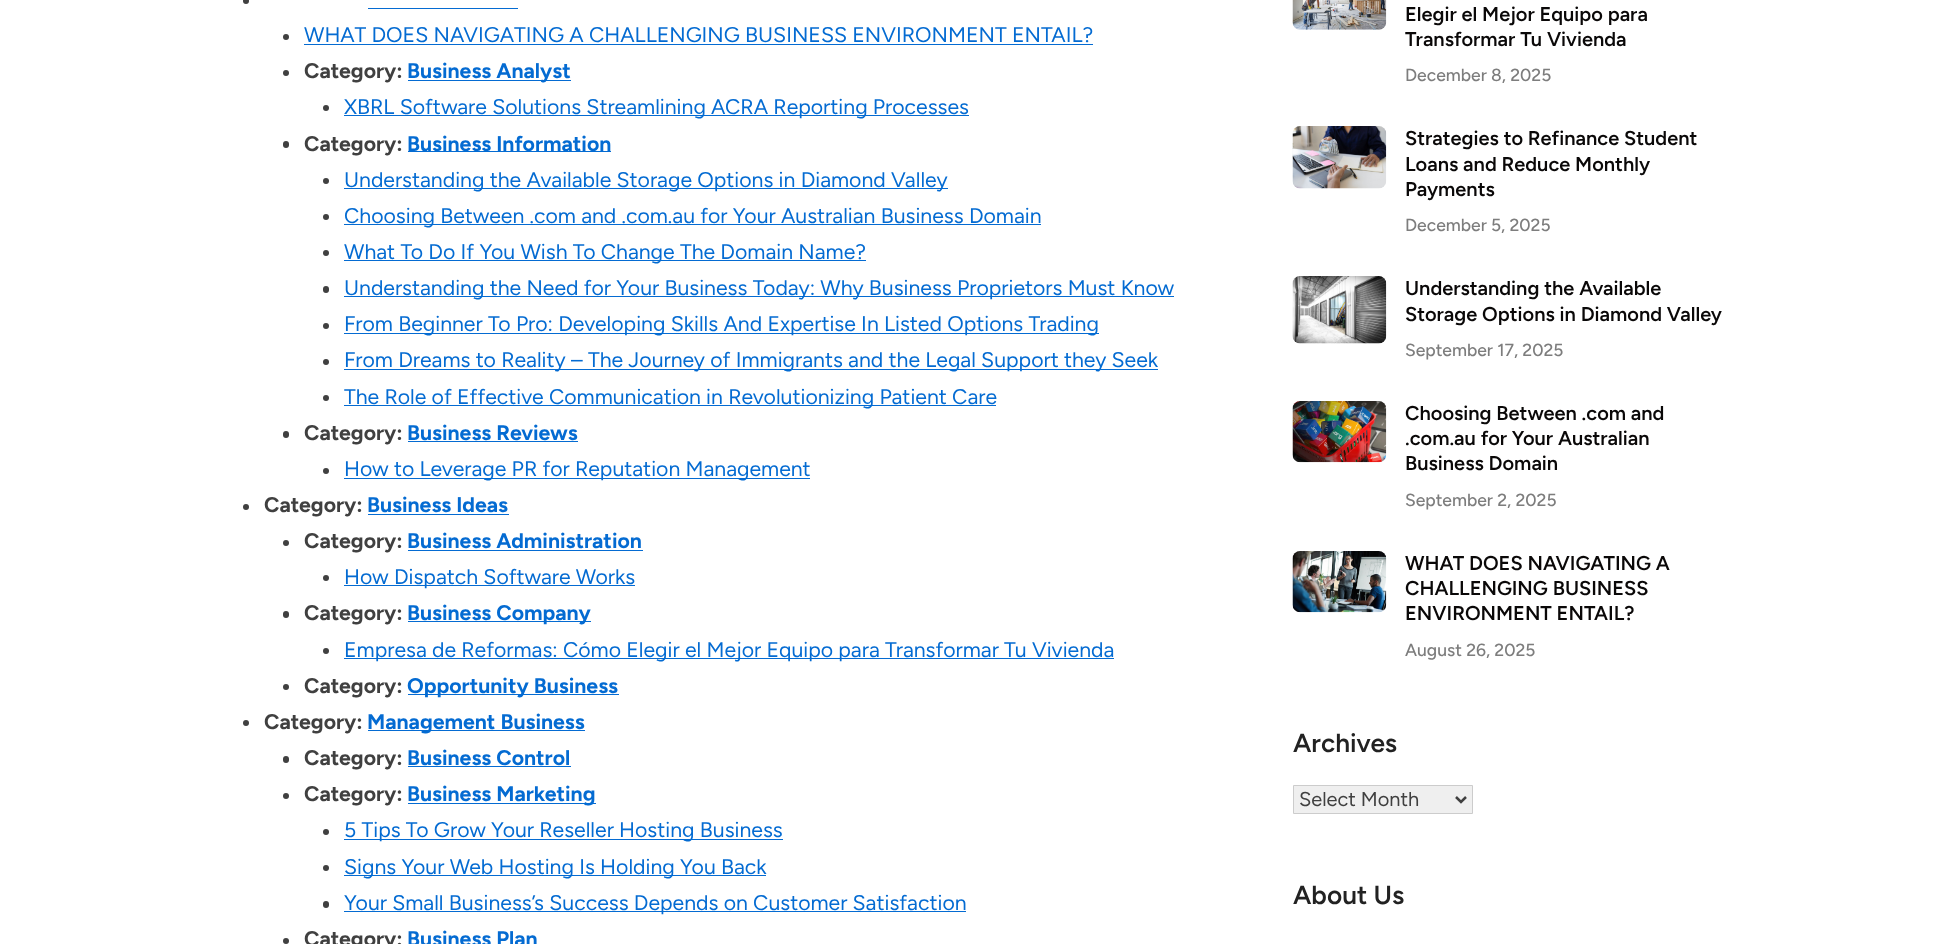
(async () => {
    const canvas = document.querySelector("canvas");
    canvas.width = 1947;
    canvas.height = 944;
    const context = canvas.getContext("2d");
    context.miterLimit = 4;
    context.fontKerning = "normal";
    function write(s, x, y, font, color) {
        context.font = font;
        context.fillStyle = color;
        context.fillText(s, x, y);
    }
    function block(x, y, w, h, color) {
        context.fillStyle = color;
        context.fillRect(x, y, w, h);
    }
    function card(x, y, w, h, r, color) {
        context.fillStyle = color;
        context.beginPath();
        context.roundRect(x, y, w, h, r);
        context.fill();
    }
    async function photo(src, x, y, w, h) {
        const img = new Image();
        img.src = src;
        await img.decode();
        context.drawImage(img, x, y, w, h);
    }

    block(0, 0, 1947, 944, "rgb(255, 255, 255)");
    context.fillStyle = "rgb(64, 64, 64)";
    context.beginPath();
    context.arc(246, 1, 3, 0, Math.PI * 2);
    context.fill();
    block(368, 8, 150, 1, "rgb(4, 107, 210)");
    context.fillStyle = "rgb(64, 64, 64)";
    context.beginPath();
    context.arc(286, 37, 3, 0, Math.PI * 2);
    context.fill();
    write("WHAT DOES NAVIGATING A CHALLENGING BUSINESS ENVIRONMENT ENTAIL?", 304, 42, "21.25px Figtree", "rgb(4, 107, 210)");
    block(304, 44, 789, 1, "rgb(4, 107, 210)");
    context.fillStyle = "rgb(64, 64, 64)";
    context.beginPath();
    context.arc(286, 73, 3, 0, Math.PI * 2);
    context.fill();
    write("Category:", 304, 78, "bold 21.25px Figtree", "rgb(64, 64, 64)");
    block(408, 80, 163, 1, "rgb(4, 107, 210)");
    write("Business Analyst", 407, 78, "bold 21.25px Figtree", "rgb(4, 107, 210)");
    context.fillStyle = "rgb(64, 64, 64)";
    context.beginPath();
    context.arc(326, 108, 3, 0, Math.PI * 2);
    context.fill();
    block(344, 115, 625, 1, "rgb(4, 107, 210)");
    write("XBRL Software Solutions Streamlining ACRA Reporting Processes", 344, 114, "21.25px Figtree", "rgb(4, 107, 210)");
    card(283, 141, 6, 7, 3, "rgb(64, 64, 64)");
    write("Category:", 304, 151, "bold 21.25px Figtree", "rgb(64, 64, 64)");
    block(408, 151, 203, 1, "rgb(4, 107, 210)");
    write("Business Information", 407, 151, "bold 21.25px Figtree", "rgb(4, 107, 210)");
    context.fillStyle = "rgb(64, 64, 64)";
    context.beginPath();
    context.arc(326, 181, 3, 0, Math.PI * 2);
    context.fill();
    block(344, 188, 604, 1, "rgb(4, 107, 210)");
    write("Understanding the Available Storage Options in Diamond Valley", 344, 187, "21.25px Figtree", "rgb(4, 107, 210)");
    context.fillStyle = "rgb(64, 64, 64)";
    context.beginPath();
    context.arc(326, 217, 3, 0, Math.PI * 2);
    context.fill();
    block(344, 224, 697, 1, "rgb(4, 107, 210)");
    write("Choosing Between .com and .com.au for Your Australian Business Domain", 344, 223, "21.25px Figtree", "rgb(4, 107, 210)");
    context.fillStyle = "rgb(64, 64, 64)";
    context.beginPath();
    context.arc(326, 253, 3, 0, Math.PI * 2);
    context.fill();
    block(344, 260, 522, 1, "rgb(4, 107, 210)");
    write("What To Do If You Wish To Change The Domain Name?", 344, 259, "21.25px Figtree", "rgb(4, 107, 210)");
    card(323, 286, 6, 7, 3, "rgb(64, 64, 64)");
    block(344, 296, 830, 1, "rgb(4, 107, 210)");
    write("Understanding the Need for Your Business Today: Why Business Proprietors Must Know", 344, 295, "21.25px Figtree", "rgb(4, 107, 210)");
    context.fillStyle = "rgb(64, 64, 64)";
    context.beginPath();
    context.arc(326, 326, 3, 0, Math.PI * 2);
    context.fill();
    block(344, 333, 755, 1, "rgb(4, 107, 210)");
    write("From Beginner To Pro: Developing Skills And Expertise In Listed Options Trading", 344, 331, "21.25px Figtree", "rgb(4, 107, 210)");
    context.fillStyle = "rgb(64, 64, 64)";
    context.beginPath();
    context.arc(326, 362, 3, 0, Math.PI * 2);
    context.fill();
    block(344, 369, 814, 1, "rgb(4, 107, 210)");
    write("From Dreams to Reality – The Journey of Immigrants and the Legal Support they Seek", 344, 367, "21.25px Figtree", "rgb(4, 107, 210)");
    context.fillStyle = "rgb(64, 64, 64)";
    context.beginPath();
    context.arc(326, 398, 3, 0, Math.PI * 2);
    context.fill();
    block(344, 405, 652, 1, "rgb(4, 107, 210)");
    write("The Role of Effective Communication in Revolutionizing Patient Care", 344, 404, "21.25px Figtree", "rgb(4, 107, 210)");
    card(283, 431, 6, 7, 3, "rgb(64, 64, 64)");
    write("Category:", 304, 440, "bold 21.25px Figtree", "rgb(64, 64, 64)");
    write("Business Reviews", 407, 440, "bold 21.25px Figtree", "rgb(4, 107, 210)");
    block(408, 441, 170, 1, "rgb(4, 107, 210)");
    context.fillStyle = "rgb(64, 64, 64)";
    context.beginPath();
    context.arc(326, 471, 3, 0, Math.PI * 2);
    context.fill();
    block(344, 478, 466, 1, "rgb(4, 107, 210)");
    write("How to Leverage PR for Reputation Management", 344, 476, "21.25px Figtree", "rgb(4, 107, 210)");
    context.fillStyle = "rgb(64, 64, 64)";
    context.beginPath();
    context.arc(246, 507, 3, 0, Math.PI * 2);
    context.fill();
    write("Category:", 264, 512, "bold 21.25px Figtree", "rgb(64, 64, 64)");
    write("Business Ideas", 367, 512, "bold 21.25px Figtree", "rgb(4, 107, 210)");
    block(368, 514, 141, 1, "rgb(4, 107, 210)");
    context.fillStyle = "rgb(64, 64, 64)";
    context.beginPath();
    context.arc(286, 543, 3, 0, Math.PI * 2);
    context.fill();
    write("Category:", 304, 548, "bold 21.25px Figtree", "rgb(64, 64, 64)");
    write("Business Administration", 407, 548, "bold 21.25px Figtree", "rgb(4, 107, 210)");
    block(408, 550, 235, 1, "rgb(4, 107, 210)");
    context.fillStyle = "rgb(64, 64, 64)";
    context.beginPath();
    context.arc(326, 578, 3, 0, Math.PI * 2);
    context.fill();
    block(344, 585, 291, 1, "rgb(4, 107, 210)");
    write("How Dispatch Software Works", 344, 584, "21.25px Figtree", "rgb(4, 107, 210)");
    card(283, 611, 6, 7, 3, "rgb(64, 64, 64)");
    write("Category:", 304, 620, "bold 21.25px Figtree", "rgb(64, 64, 64)");
    block(408, 621, 183, 1, "rgb(4, 107, 210)");
    write("Business Company", 407, 620, "bold 21.25px Figtree", "rgb(4, 107, 210)");
    context.fillStyle = "rgb(64, 64, 64)";
    context.beginPath();
    context.arc(326, 651, 3, 0, Math.PI * 2);
    context.fill();
    block(344, 658, 770, 1, "rgb(4, 107, 210)");
    write("Empresa de Reformas: Cómo Elegir el Mejor Equipo para Transformar Tu Vivienda", 344, 657, "21.25px Figtree", "rgb(4, 107, 210)");
    context.fillStyle = "rgb(64, 64, 64)";
    context.beginPath();
    context.arc(286, 687, 3, 0, Math.PI * 2);
    context.fill();
    write("Category:", 304, 693, "bold 21.25px Figtree", "rgb(64, 64, 64)");
    block(408, 694, 211, 1, "rgb(4, 107, 210)");
    write("Opportunity Business", 407, 693, "bold 21.25px Figtree", "rgb(4, 107, 210)");
    context.fillStyle = "rgb(64, 64, 64)";
    context.beginPath();
    context.arc(246, 723, 3, 0, Math.PI * 2);
    context.fill();
    write("Category:", 264, 729, "bold 21.25px Figtree", "rgb(64, 64, 64)");
    block(368, 730, 217, 1, "rgb(4, 107, 210)");
    write("Management Business", 367, 729, "bold 21.25px Figtree", "rgb(4, 107, 210)");
    card(283, 756, 6, 7, 3, "rgb(64, 64, 64)");
    write("Category:", 304, 765, "bold 21.25px Figtree", "rgb(64, 64, 64)");
    write("Business Control", 407, 765, "bold 21.25px Figtree", "rgb(4, 107, 210)");
    block(408, 766, 163, 1, "rgb(4, 107, 210)");
    context.fillStyle = "rgb(64, 64, 64)";
    context.beginPath();
    context.arc(286, 796, 3, 0, Math.PI * 2);
    context.fill();
    write("Category:", 304, 801, "bold 21.25px Figtree", "rgb(64, 64, 64)");
    block(408, 803, 188, 1, "rgb(4, 107, 210)");
    write("Business Marketing", 407, 801, "bold 21.25px Figtree", "rgb(4, 107, 210)");
    context.fillStyle = "rgb(64, 64, 64)";
    context.beginPath();
    context.arc(326, 832, 3, 0, Math.PI * 2);
    context.fill();
    block(344, 839, 439, 1, "rgb(4, 107, 210)");
    write("5 Tips To Grow Your Reseller Hosting Business", 344, 837, "21.25px Figtree", "rgb(4, 107, 210)");
    context.fillStyle = "rgb(64, 64, 64)";
    context.beginPath();
    context.arc(326, 868, 3, 0, Math.PI * 2);
    context.fill();
    block(344, 875, 422, 1, "rgb(4, 107, 210)");
    write("Signs Your Web Hosting Is Holding You Back", 344, 874, "21.25px Figtree", "rgb(4, 107, 210)");
    card(323, 901, 6, 7, 3, "rgb(64, 64, 64)");
    block(344, 911, 622, 1, "rgb(4, 107, 210)");
    write("Your Small Business’s Success Depends on Customer Satisfaction", 344, 910, "21.25px Figtree", "rgb(4, 107, 210)");
    context.fillStyle = "rgb(64, 64, 64)";
    context.beginPath();
    context.arc(286, 941, 3, 0, Math.PI * 2);
    context.fill();
    write("Category:", 304, 946, "bold 21.25px Figtree", "rgb(64, 64, 64)");
    write("Business Plan", 407, 946, "bold 21.25px Figtree", "rgb(4, 107, 210)");
    await photo("media/1.png", 1292, 0, 95, 30);
    write("Elegir el Mejor Equipo para", 1405, 21, "600 20px Figtree", "rgb(10, 8, 8)");
    write("Transformar Tu Vivienda", 1405, 46, "600 20px Figtree", "rgb(10, 8, 8)");
    write("December 8, 2025", 1405, 81, "500 17.5px Figtree", "rgb(125, 125, 125)");
    await photo("media/2.png", 1292, 126, 95, 63);
    write("Strategies to Refinance Student", 1405, 145, "600 20px Figtree", "rgb(10, 8, 8)");
    write("Loans and Reduce Monthly", 1405, 171, "600 20px Figtree", "rgb(10, 8, 8)");
    write("Payments", 1405, 196, "600 20px Figtree", "rgb(10, 8, 8)");
    write("December 5, 2025", 1405, 231, "500 17.5px Figtree", "rgb(125, 125, 125)");
    await photo("media/3.png", 1292, 276, 95, 68);
    write("Understanding the Available", 1405, 295, "600 20px Figtree", "rgb(10, 8, 8)");
    write("Storage Options in Diamond Valley", 1405, 321, "600 20px Figtree", "rgb(10, 8, 8)");
    write("September 17, 2025", 1405, 356, "500 17.5px Figtree", "rgb(125, 125, 125)");
    await photo("media/4.png", 1292, 401, 95, 62);
    write("Choosing Between .com and", 1405, 420, "600 20px Figtree", "rgb(10, 8, 8)");
    write(".com.au for Your Australian", 1405, 445, "600 20px Figtree", "rgb(10, 8, 8)");
    write("Business Domain", 1405, 470, "600 20px Figtree", "rgb(10, 8, 8)");
    write("September 2, 2025", 1405, 506, "500 17.5px Figtree", "rgb(125, 125, 125)");
    await photo("media/5.png", 1292, 551, 95, 62);
    write("WHAT DOES NAVIGATING A", 1405, 570, "600 20px Figtree", "rgb(10, 8, 8)");
    write("CHALLENGING BUSINESS", 1405, 595, "600 20px Figtree", "rgb(10, 8, 8)");
    write("ENVIRONMENT ENTAIL?", 1405, 620, "600 20px Figtree", "rgb(10, 8, 8)");
    write("August 26, 2025", 1405, 656, "500 17.5px Figtree", "rgb(125, 125, 125)");
    write("Archives", 1293, 752, "600 26.25px Figtree", "rgb(34, 34, 34)");
    context.fillStyle = "rgb(239, 239, 239)";
    context.beginPath();
    context.rect(1293.5, 785.5, 179, 28);
    context.fill();
    context.strokeStyle = "rgb(204, 204, 204)";
    context.stroke();
    context.beginPath();
    context.moveTo(1456, 797);
    context.lineTo(1461, 802);
    context.lineTo(1466, 797);
    context.strokeStyle = "rgb(64, 64, 64)";
    context.lineWidth = 2.5;
    context.stroke();
    write("Select Month", 1299, 806, "20px Figtree", "rgb(64, 64, 64)");
    write("About Us", 1293, 904, "600 26.25px Figtree", "rgb(34, 34, 34)");
})();
